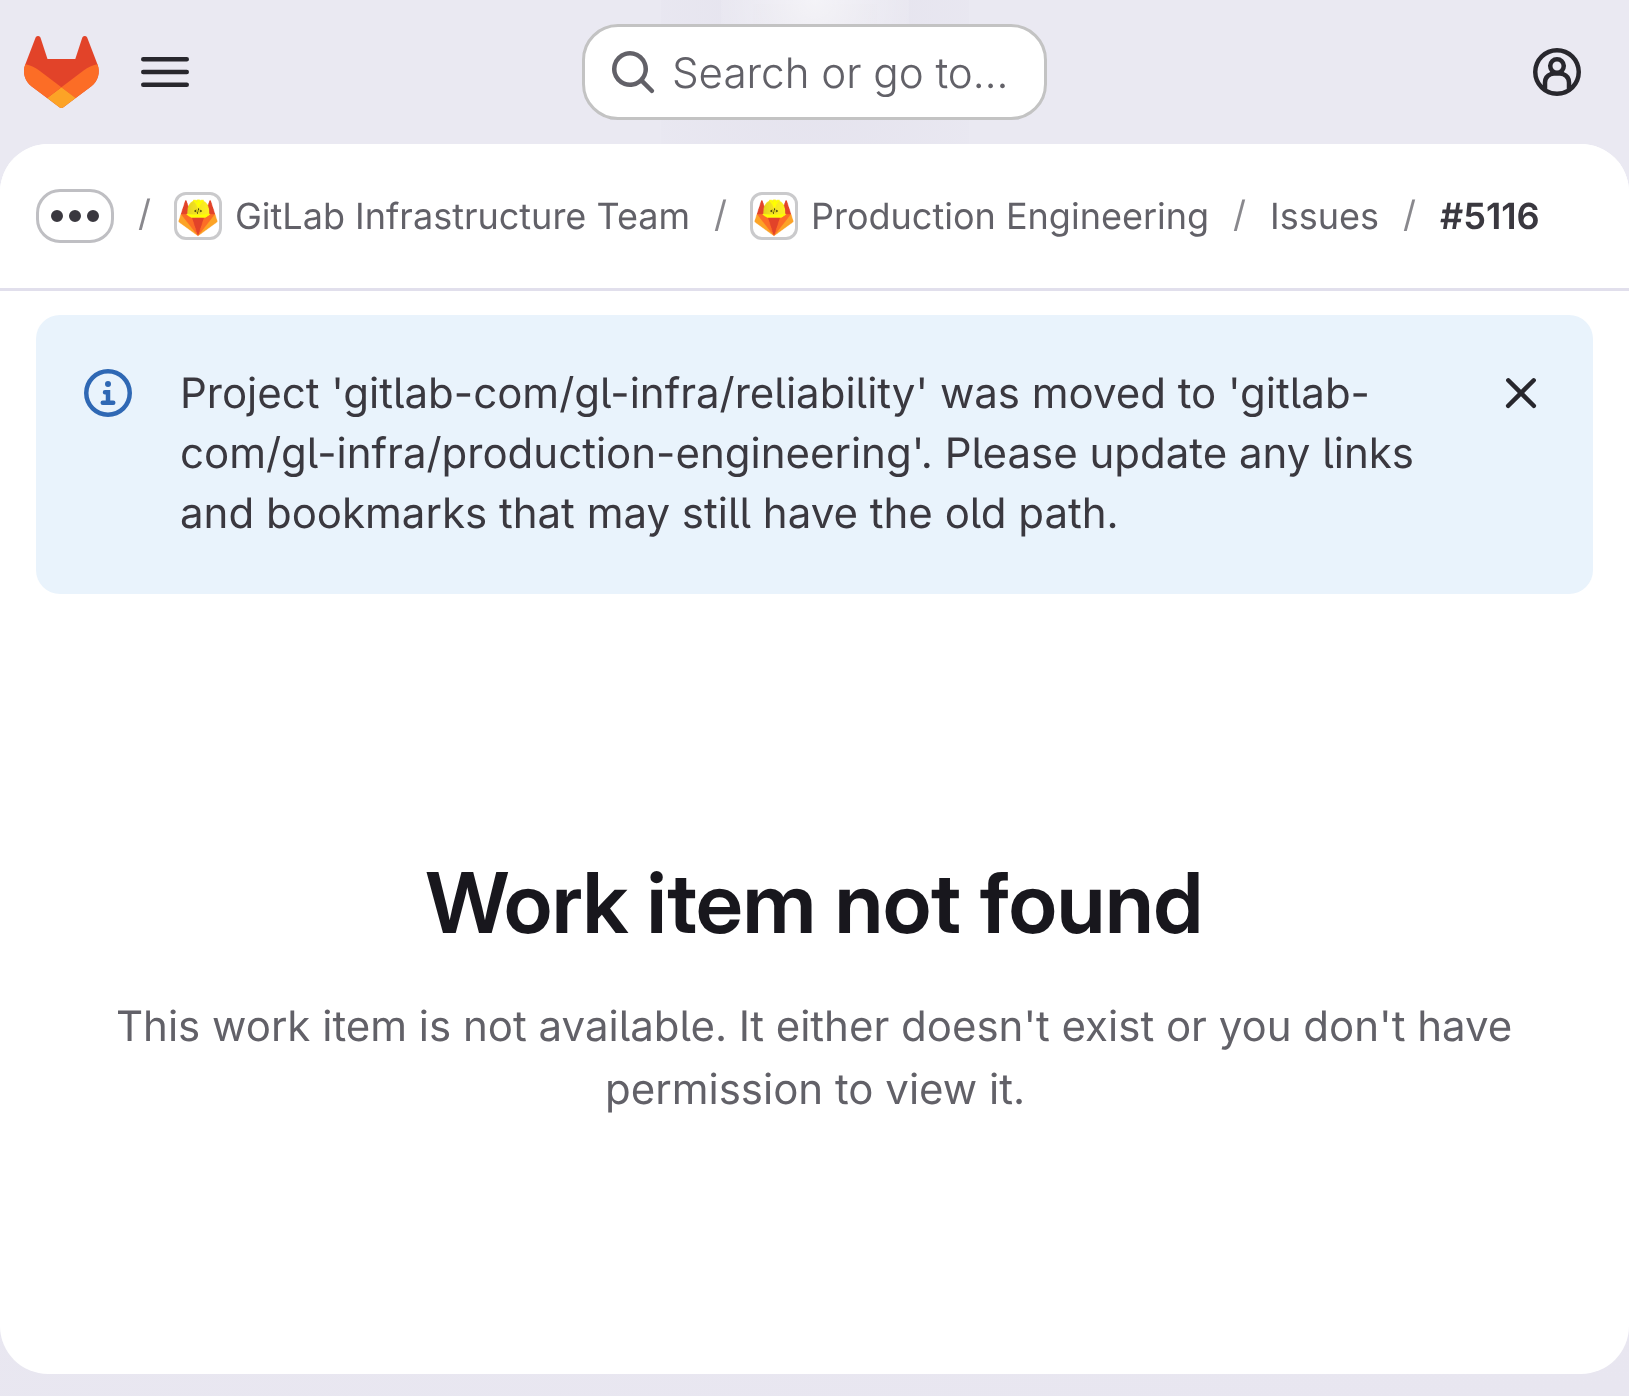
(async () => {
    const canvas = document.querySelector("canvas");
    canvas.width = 1629;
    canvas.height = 1396;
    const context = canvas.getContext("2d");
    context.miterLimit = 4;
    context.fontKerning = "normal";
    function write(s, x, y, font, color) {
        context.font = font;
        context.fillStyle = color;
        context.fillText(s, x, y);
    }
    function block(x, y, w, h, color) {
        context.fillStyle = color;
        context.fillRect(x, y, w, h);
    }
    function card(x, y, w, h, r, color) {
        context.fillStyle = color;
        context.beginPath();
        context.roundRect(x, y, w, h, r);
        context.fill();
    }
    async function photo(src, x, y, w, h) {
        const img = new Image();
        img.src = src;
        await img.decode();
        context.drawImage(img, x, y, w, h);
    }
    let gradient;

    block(0, 0, 1629, 1396, "rgb(255, 255, 255)");
    gradient = context.createLinearGradient(959, 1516, 670, -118);
    gradient.addColorStop(0, "rgb(232, 230, 240)");
    gradient.addColorStop(0.7, "rgb(234, 233, 242)");
    context.fillStyle = gradient;
    context.fillRect(0, 0, 1629, 1396);
    gradient = context.createRadialGradient(815, 0, 0, 815, 0, 815);
    gradient.addColorStop(0, "rgb(228, 226, 237)");
    gradient.addColorStop(0.26, "rgba(228, 226, 237, 0)");
    context.fillStyle = gradient;
    context.beginPath();
    context.rect(661, 0, 308, 144);
    context.save();
    context.clip();
    context.scale(1, 1398 / 815);
    context.fillRect(0, 0, 1629, 814);
    context.restore();
    gradient = context.createRadialGradient(815, 0, 0, 815, 0, 815);
    gradient.addColorStop(0, "rgb(228, 226, 236)");
    gradient.addColorStop(0.18, "rgba(228, 226, 236, 0)");
    context.fillStyle = gradient;
    context.beginPath();
    context.rect(753, 4, 124, 87);
    context.save();
    context.clip();
    context.scale(1, 1398 / 815);
    context.fillRect(0, 0, 1629, 814);
    context.restore();
    gradient = context.createRadialGradient(815, 0, 0, 815, 0, 1618);
    gradient.addColorStop(0, "rgba(255, 255, 255, 0.6)");
    gradient.addColorStop(0.07, "rgba(255, 255, 255, 0)");
    context.fillStyle = gradient;
    context.fillRect(721, 0, 188, 24);
    await photo("media/1.png", 24, 36, 75, 72);
    await photo("media/2.png", 141, 57, 48, 30);
    card(582, 24, 465, 96, 36, "rgb(255, 255, 255)");
    context.beginPath();
    context.roundRect(583.5, 25.5, 462, 93, 34.5);
    context.strokeStyle = "rgba(5, 5, 6, 0.24)";
    context.lineWidth = 3;
    context.stroke();
    await photo("media/3.png", 612, 51, 43, 43);
    write("Search or go to…", 672, 88, "300 42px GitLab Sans", "rgb(98, 97, 104)");
    await photo("media/4.png", 1533, 48, 48, 48);
    card(0, 144, 1629, 1230, 48, "rgb(255, 255, 255)");
    context.beginPath();
    context.roundRect(0, 144, 1629, 147, [48, 48, 0, 0]);
    context.fill();
    block(0, 288, 1629, 3, "rgb(225, 223, 236)");
    context.beginPath();
    context.roundRect(37.5, 190.5, 75, 51, 22.5);
    context.strokeStyle = "rgb(191, 191, 195)";
    context.stroke();
    await photo("media/5.png", 51, 210, 48, 12);
    write("/", 138, 226, "36px GitLab Sans", "rgb(137, 136, 141)");
    context.beginPath();
    context.roundRect(175.5, 193.5, 45, 45, 10.5);
    context.strokeStyle = "rgb(220, 220, 222)";
    context.stroke();
    await photo("media/6.png", 178, 199, 40, 38);
    context.beginPath();
    context.roundRect(175.5, 193.5, 45, 45, 10.5);
    context.strokeStyle = "rgba(5, 5, 6, 0.08)";
    context.stroke();
    write("GitLab Infrastructure Team", 235, 229, "36px GitLab Sans", "rgb(98, 97, 104)");
    write("/", 714, 227, "36px GitLab Sans", "rgb(137, 136, 141)");
    context.beginPath();
    context.roundRect(751.5, 193.5, 45, 45, 10.5);
    context.strokeStyle = "rgb(220, 220, 222)";
    context.stroke();
    await photo("media/6.png", 754, 199, 40, 38);
    context.beginPath();
    context.roundRect(751.5, 193.5, 45, 45, 10.5);
    context.strokeStyle = "rgba(5, 5, 6, 0.08)";
    context.stroke();
    write("Production Engineering", 811, 229, "36px GitLab Sans", "rgb(98, 97, 104)");
    write("/", 1233, 227, "36px GitLab Sans", "rgb(137, 136, 141)");
    write("Issues", 1270, 229, "36px GitLab Sans", "rgb(98, 97, 104)");
    write("/", 1403, 227, "36px GitLab Sans", "rgb(137, 136, 141)");
    write("#5116", 1440, 229, "600 36px 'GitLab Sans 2'", "rgb(58, 56, 63)");
    card(36, 315, 1557, 279, 24, "rgb(233, 243, 252)");
    await photo("media/7.png", 84, 369, 48, 48);
    write("Project 'gitlab-com/gl-infra/reliability' was moved to 'gitlab-", 180, 408, "42px GitLab Sans", "rgb(58, 56, 63)");
    write("com/gl-infra/production-engineering'. Please update any links", 180, 468, "42px GitLab Sans", "rgb(58, 56, 63)");
    write("and bookmarks that may still have the old path.", 180, 528, "42px GitLab Sans", "rgb(58, 56, 63)");
    await photo("media/8.png", 1505, 378, 32, 31);
    write("Work item not found", 426, 933, "600 84px GitLab Sans", "rgb(24, 23, 29)");
    write("This work item is not available. It either doesn't exist or you don't have", 116, 1041, "42px GitLab Sans", "rgb(98, 97, 104)");
    write("permission to view it.", 605, 1104, "42px GitLab Sans", "rgb(98, 97, 104)");
})();
